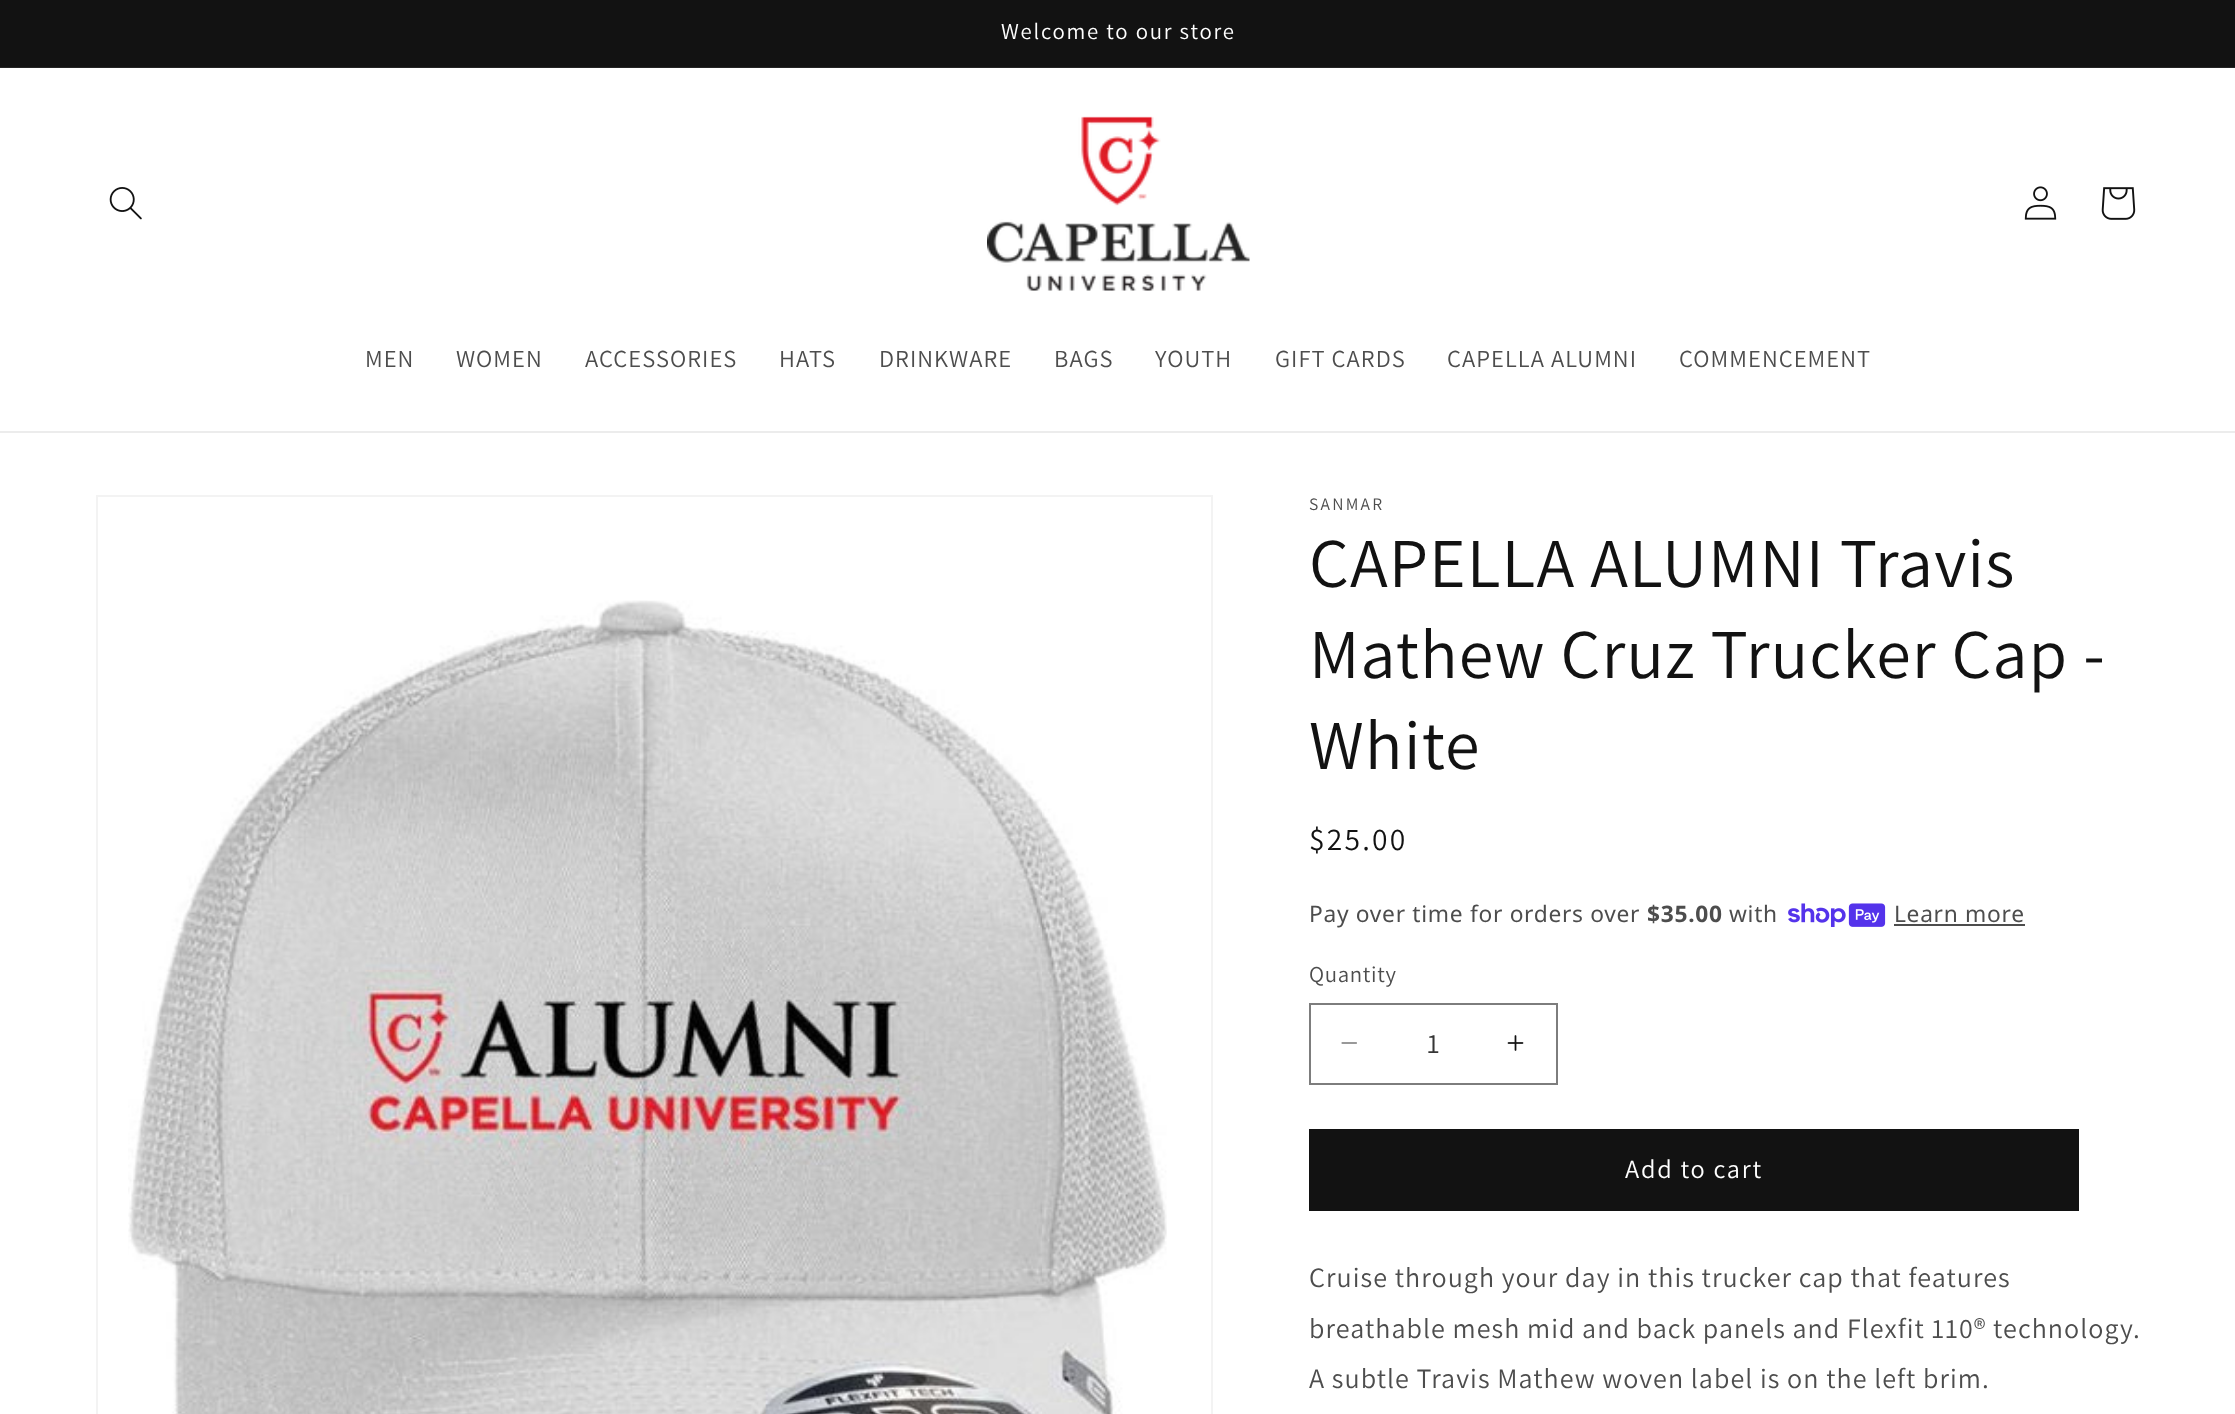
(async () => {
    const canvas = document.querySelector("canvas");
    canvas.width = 2235;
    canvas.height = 1414;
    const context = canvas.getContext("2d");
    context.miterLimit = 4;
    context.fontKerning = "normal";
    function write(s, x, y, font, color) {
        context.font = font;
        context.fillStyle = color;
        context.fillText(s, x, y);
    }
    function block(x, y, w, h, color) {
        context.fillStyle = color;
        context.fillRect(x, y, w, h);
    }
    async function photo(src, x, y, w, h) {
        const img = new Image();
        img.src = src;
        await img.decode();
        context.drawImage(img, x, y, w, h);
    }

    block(0, 0, 2235, 1414, "rgb(255, 255, 255)");
    block(0, 0, 2235, 67, "rgb(18, 18, 18)");
    block(0, 67, 2235, 1, "rgb(37, 37, 37)");
    context.letterSpacing = "1.75px";
    write("Welcome to our store", 1001, 39, "22.75px Assistant", "rgb(255, 255, 255)");
    block(0, 431, 2235, 2, "rgb(236, 236, 236)");
    await photo("media/1.png", 109, 187, 33, 33);
    await photo("media/2.png", 987, 116, 263, 175);
    await photo("media/3.png", 2024, 186, 33, 34);
    await photo("media/4.png", 2101, 187, 35, 33);
    context.letterSpacing = "1.05px";
    write("MEN", 365, 367, "24.5px Assistant", "rgb(77, 77, 77)");
    write("WOMEN", 456, 367, "24.5px Assistant", "rgb(77, 77, 77)");
    write("ACCESSORIES", 585, 367, "24.5px Assistant", "rgb(77, 77, 77)");
    write("HATS", 779, 367, "24.5px Assistant", "rgb(77, 77, 77)");
    write("DRINKWARE", 879, 367, "24.5px Assistant", "rgb(77, 77, 77)");
    write("BAGS", 1054, 367, "24.5px Assistant", "rgb(77, 77, 77)");
    write("YOUTH", 1155, 367, "24.5px Assistant", "rgb(77, 77, 77)");
    write("GIFT CARDS", 1275, 367, "24.5px Assistant", "rgb(77, 77, 77)");
    write("CAPELLA ALUMNI", 1447, 367, "24.5px Assistant", "rgb(77, 77, 77)");
    write("COMMENCEMENT", 1679, 367, "24.5px Assistant", "rgb(77, 77, 77)");
    context.strokeStyle = "rgb(243, 243, 243)";
    context.lineWidth = 2;
    context.strokeRect(97, 496, 1115, 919);
    await photo("media/5.png", 128, 600, 1039, 814);
    context.letterSpacing = "2.25px";
    write("SANMAR", 1309, 510, "17.5px Assistant", "rgb(77, 77, 77)");
    context.letterSpacing = "1.05px";
    write("CAPELLA ALUMNI Travis", 1309, 587, "70px Assistant", "rgb(18, 18, 18)");
    write("Mathew Cruz Trucker Cap -", 1309, 678, "70px Assistant", "rgb(18, 18, 18)");
    write("White", 1309, 769, "70px Assistant", "rgb(18, 18, 18)");
    context.letterSpacing = "2.25px";
    write("$25.00", 1309, 850, "31.5px Assistant", "rgb(18, 18, 18)");
    context.letterSpacing = "0.7px";
    write("Pay over time for orders over", 1309, 922, "22.75px Noto Sans", "rgb(77, 77, 77)");
    write("$35.00", 1647, 922, "bold 22.75px Noto Sans", "rgb(77, 77, 77)");
    write("with", 1729, 922, "22.75px Noto Sans", "rgb(77, 77, 77)");
    await photo("media/6.png", 1788, 903, 98, 24);
    write("Learn more", 1894, 922, "22.75px Noto Sans", "rgb(77, 77, 77)");
    block(1894, 924, 131, 2, "rgb(77, 77, 77)");
    write("Quantity", 1309, 982, "22.75px Assistant", "rgb(77, 77, 77)");
    await photo("media/7.png", 1341, 1042, 16, 2);
    await photo("media/8.png", 1507, 1035, 17, 16);
    context.strokeStyle = "rgb(125, 125, 125)";
    context.strokeRect(1310, 1004, 247, 80);
    context.letterSpacing = "0px";
    write("1", 1427, 1053, "28px Assistant", "rgb(54, 54, 54)");
    block(1309, 1129, 770, 82, "rgb(18, 18, 18)");
    context.letterSpacing = "1.75px";
    write("Add to cart", 1625, 1178, "26.25px Assistant", "rgb(255, 255, 255)");
    context.letterSpacing = "1.05px";
    write("Cruise through your day in this trucker cap that features", 1309, 1287, "28px Assistant", "rgb(77, 77, 77)");
    write("breathable mesh mid and back panels and Flexfit 110® technology.", 1309, 1338, "28px Assistant", "rgb(77, 77, 77)");
    write("A subtle Travis Mathew woven label is on the left brim.", 1309, 1388, "28px Assistant", "rgb(77, 77, 77)");
})();
